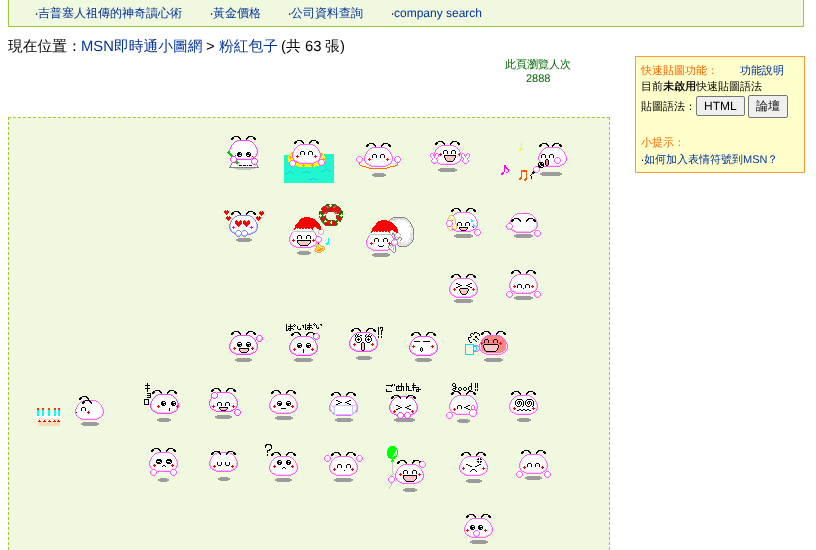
(async () => {
    const canvas = document.querySelector("canvas");
    canvas.width = 816;
    canvas.height = 550;
    const context = canvas.getContext("2d");
    context.miterLimit = 4;
    context.fontKerning = "normal";
    function write(s, x, y, font, color) {
        context.font = font;
        context.fillStyle = color;
        context.fillText(s, x, y);
    }
    function block(x, y, w, h, color) {
        context.fillStyle = color;
        context.fillRect(x, y, w, h);
    }
    async function photo(src, x, y, w, h) {
        const img = new Image();
        img.src = src;
        await img.decode();
        context.drawImage(img, x, y, w, h);
    }

    block(0, 0, 816, 550, "rgb(255, 255, 255)");
    block(9, 0, 794, 26, "rgb(240, 248, 224)");
    block(803, 0, 1, 27, "rgb(153, 204, 51)");
    block(8, 26, 796, 1, "rgb(153, 204, 51)");
    block(8, 0, 1, 27, "rgb(153, 204, 51)");
    write("‧", 35, 17, "12px Noto Sans", "rgb(0, 0, 0)");
    write("吉普塞人祖傳的神奇讀心術", 38, 17, "500 12px WenQuanYi Zen Hei", "rgb(0, 51, 153)");
    write("‧", 210, 17, "12px Noto Sans", "rgb(0, 0, 0)");
    write("黃金價格", 213, 17, "500 12px WenQuanYi Zen Hei", "rgb(0, 51, 153)");
    write("‧", 288, 17, "12px Noto Sans", "rgb(0, 0, 0)");
    write("公司資料查詢", 291, 17, "500 12px WenQuanYi Zen Hei", "rgb(0, 51, 153)");
    write("‧", 391, 17, "12px Noto Sans", "rgb(0, 0, 0)");
    write("company search", 394, 17, "12px Liberation Sans", "rgb(0, 51, 153)");
    write("現在位置：", 8, 51, "500 14.75px WenQuanYi Zen Hei", "rgb(0, 0, 0)");
    write("MSN", 81, 51, "14.75px Liberation Sans", "rgb(0, 51, 153)");
    write("即時通小圖網", 114, 51, "500 14.75px WenQuanYi Zen Hei", "rgb(0, 51, 153)");
    write(">", 206, 51, "14.75px Liberation Sans", "rgb(0, 0, 0)");
    write("粉紅包子", 219, 51, "500 14.75px WenQuanYi Zen Hei", "rgb(0, 51, 153)");
    write("(", 281, 51, "14.75px Liberation Sans", "rgb(0, 0, 0)");
    write("共", 286, 51, "500 14.75px WenQuanYi Zen Hei", "rgb(0, 0, 0)");
    write("63", 305, 51, "14.75px Liberation Sans", "rgb(0, 0, 0)");
    write("張", 325, 51, "500 14.75px WenQuanYi Zen Hei", "rgb(0, 0, 0)");
    write(")", 340, 51, "14.75px Liberation Sans", "rgb(0, 0, 0)");
    write("此頁瀏覽人次", 505, 68, "500 11px WenQuanYi Zen Hei", "rgb(0, 102, 0)");
    write("2888", 526, 82, "11px Liberation Sans", "rgb(0, 102, 0)");
    context.fillStyle = "rgb(255, 255, 204)";
    context.beginPath();
    context.rect(635.5, 56.5, 169, 116);
    context.fill();
    context.strokeStyle = "rgb(255, 153, 51)";
    context.stroke();
    write("快速貼圖功能：", 641, 74, "500 11px WenQuanYi Zen Hei", "rgb(255, 102, 0)");
    write("功能說明", 740, 74, "500 11px WenQuanYi Zen Hei", "rgb(0, 51, 153)");
    write("目前", 641, 90, "500 11px WenQuanYi Zen Hei", "rgb(0, 0, 0)");
    write("未啟用", 663, 90, "bold 11px WenQuanYi Zen Hei", "rgb(0, 0, 0)");
    write("快速貼圖語法", 696, 90, "500 11px WenQuanYi Zen Hei", "rgb(0, 0, 0)");
    write("貼圖語法：", 641, 110, "500 11px WenQuanYi Zen Hei", "rgb(0, 0, 0)");
    context.fillStyle = "rgb(239, 239, 239)";
    context.beginPath();
    context.roundRect(696.5, 96.5, 48, 19, 1.5);
    context.fill();
    context.strokeStyle = "rgb(118, 118, 118)";
    context.stroke();
    write("HTML", 704, 110, "12px Liberation Sans", "rgb(0, 0, 0)");
    context.fillStyle = "rgb(239, 239, 239)";
    context.beginPath();
    context.roundRect(748.5, 95.5, 39, 22, 1.5);
    context.fill();
    context.stroke();
    write("論壇", 756, 110, "500 12px WenQuanYi Zen Hei", "rgb(0, 0, 0)");
    write("小提示：", 641, 146, "500 11px WenQuanYi Zen Hei", "rgb(255, 102, 0)");
    write("‧", 641, 163, "11px Noto Sans", "rgb(0, 0, 0)");
    write("如何加入表情符號到", 644, 163, "500 11px WenQuanYi Zen Hei", "rgb(0, 51, 153)");
    write("MSN", 743, 163, "11px Liberation Sans", "rgb(0, 51, 153)");
    write("？", 767, 163, "500 11px WenQuanYi Zen Hei", "rgb(0, 51, 153)");
    block(8, 117, 602, 433, "rgb(240, 248, 224)");
    context.beginPath();
    context.moveTo(8, 117.5);
    context.lineTo(610, 117.5);
    context.strokeStyle = "rgb(153, 204, 51)";
    context.setLineDash([3, 1.99]);
    context.stroke();
    context.beginPath();
    context.moveTo(609.5, 117);
    context.lineTo(609.5, 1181);
    context.setLineDash([3, 2]);
    context.stroke();
    context.beginPath();
    context.moveTo(8.5, 117);
    context.lineTo(8.5, 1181);
    context.stroke();
    await photo("media/1.png", 227, 136, 32, 34);
    await photo("media/2.png", 284, 140, 50, 43);
    await photo("media/3.png", 356, 143, 45, 34);
    await photo("media/4.png", 430, 141, 40, 31);
    await photo("media/5.png", 501, 142, 66, 39);
    await photo("media/6.png", 224, 210, 40, 32);
    await photo("media/7.png", 289, 204, 54, 51);
    await photo("media/8.png", 366, 217, 48, 40);
    await photo("media/9.png", 446, 208, 35, 30);
    await photo("media/10.png", 506, 213, 35, 25);
    await photo("media/11.png", 449, 274, 29, 29);
    await photo("media/12.png", 506, 270, 35, 30);
    await photo("media/13.png", 229, 331, 34, 31);
    await photo("media/14.png", 286, 323, 36, 39);
    await photo("media/15.png", 349, 327, 34, 33);
    await photo("media/16.png", 409, 332, 29, 30);
    await photo("media/17.png", 465, 331, 43, 31);
    await photo("media/18.png", 35, 396, 69, 30);
    await photo("media/19.png", 144, 383, 35, 39);
    await photo("media/20.png", 209, 388, 32, 31);
    await photo("media/21.png", 269, 390, 29, 30);
    await photo("media/22.png", 329, 392, 29, 30);
    await photo("media/23.png", 386, 383, 35, 39);
    await photo("media/24.png", 446, 383, 32, 40);
    await photo("media/25.png", 509, 391, 29, 31);
    await photo("media/26.png", 149, 448, 29, 34);
    await photo("media/27.png", 209, 451, 29, 30);
    await photo("media/28.png", 265, 444, 33, 38);
    await photo("media/29.png", 324, 452, 39, 30);
    await photo("media/30.png", 387, 446, 39, 46);
    await photo("media/31.png", 459, 452, 29, 31);
    await photo("media/32.png", 516, 450, 35, 30);
    await photo("media/33.png", 464, 514, 29, 30);
})();
